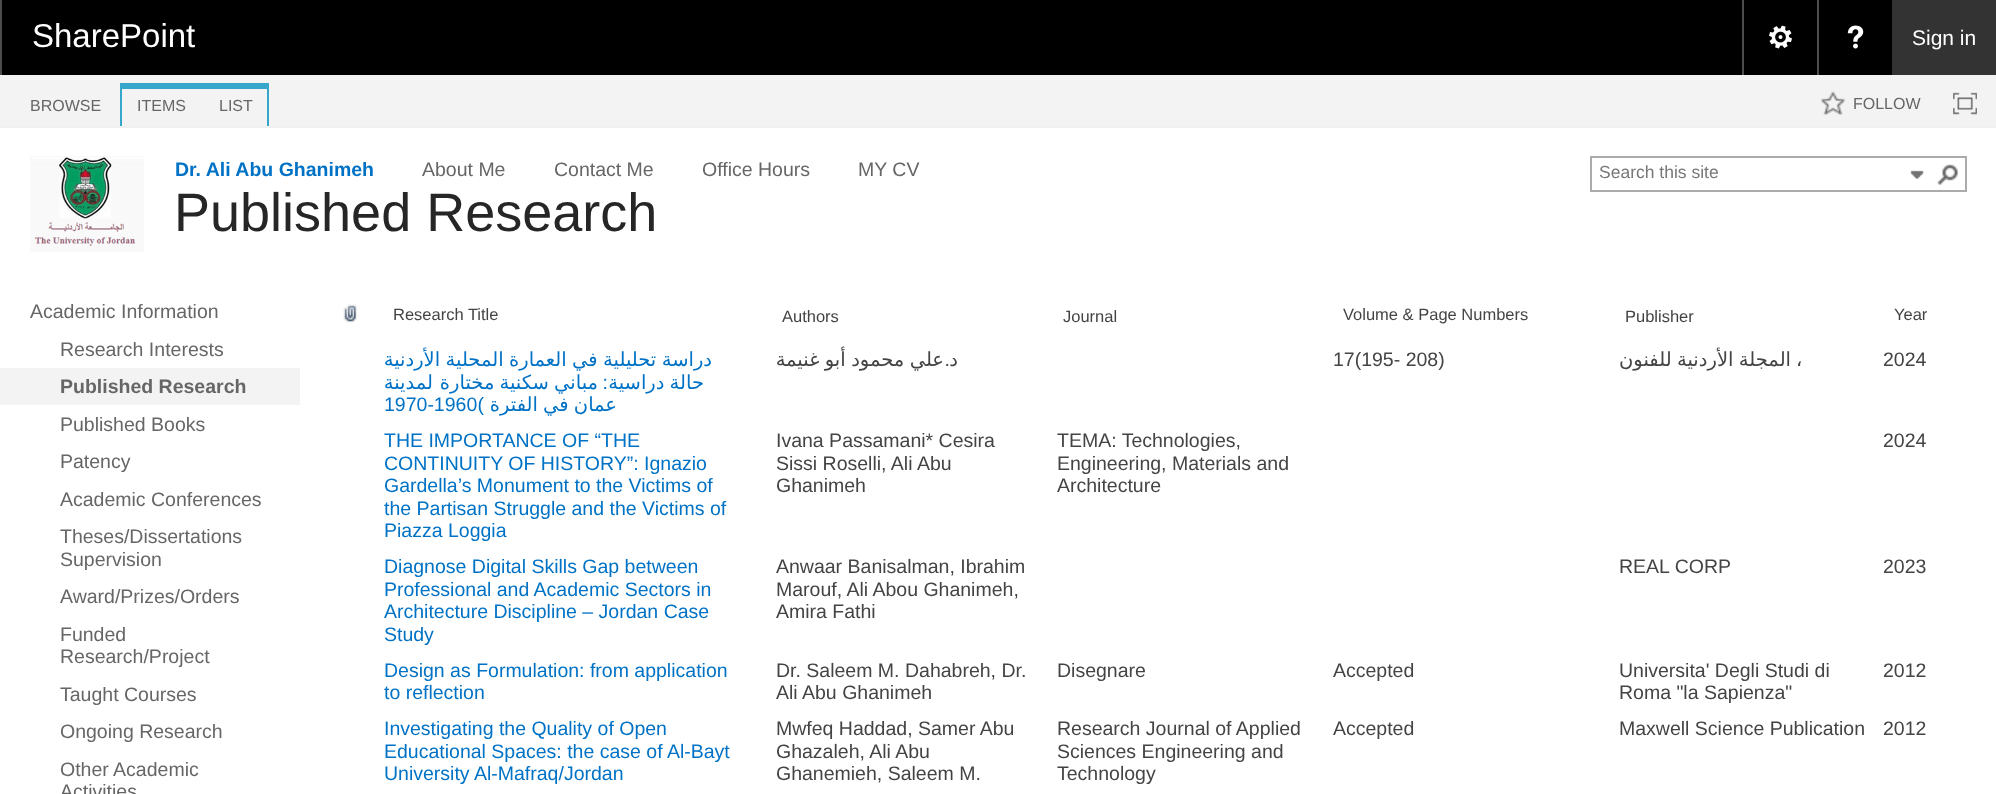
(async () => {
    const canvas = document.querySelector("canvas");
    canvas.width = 1996;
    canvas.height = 794;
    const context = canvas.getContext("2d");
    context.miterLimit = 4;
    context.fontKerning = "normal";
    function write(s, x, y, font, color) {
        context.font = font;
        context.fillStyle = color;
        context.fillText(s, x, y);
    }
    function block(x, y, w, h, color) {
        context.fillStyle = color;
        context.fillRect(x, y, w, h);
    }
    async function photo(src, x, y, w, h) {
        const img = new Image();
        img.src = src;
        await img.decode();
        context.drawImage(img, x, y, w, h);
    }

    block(0, 0, 1996, 794, "rgb(255, 255, 255)");
    block(2, 0, 1890, 75, "rgb(0, 0, 0)");
    block(0, 0, 2, 75, "rgb(77, 77, 77)");
    write("SharePoint", 32, 47, "33px Liberation Sans", "rgb(255, 255, 255)");
    block(1742, 0, 2, 75, "rgb(77, 77, 77)");
    await photo("media/1.png", 1769, 25, 23, 24);
    block(1817, 0, 2, 75, "rgb(77, 77, 77)");
    await photo("media/2.png", 1847, 25, 17, 24);
    block(1892, 0, 104, 75, "rgb(51, 51, 51)");
    write("Sign in", 1912, 45, "21px Liberation Sans", "rgb(255, 255, 255)");
    block(0, 75, 1996, 51, "rgb(243, 243, 243)");
    block(0, 126, 1996, 2, "rgb(240, 240, 240)");
    write("BROWSE", 30, 111, "16px Liberation Sans", "rgb(102, 102, 102)");
    block(120, 83, 149, 6, "rgb(54, 167, 202)");
    block(120, 89, 2, 37, "rgb(54, 167, 202)");
    write("ITEMS", 137, 111, "16px Liberation Sans", "rgb(102, 102, 102)");
    block(267, 89, 2, 37, "rgb(54, 167, 202)");
    write("LIST", 219, 111, "16px Liberation Sans", "rgb(102, 102, 102)");
    await photo("media/3.png", 1821, 91, 24, 24);
    write("FOLLOW", 1853, 109, "16px Liberation Sans", "rgb(102, 102, 102)");
    await photo("media/4.png", 1953, 92, 24, 23);
    await photo("media/5.png", 30, 156, 114, 96);
    write("Dr. Ali Abu Ghanimeh", 175, 176, "bold 19.5px Liberation Sans", "rgb(0, 114, 198)");
    write("About Me", 422, 176, "19.5px Liberation Sans", "rgb(102, 102, 102)");
    write("Contact Me", 554, 176, "19.5px Liberation Sans", "rgb(102, 102, 102)");
    write("Office Hours", 702, 176, "19.5px Liberation Sans", "rgb(102, 102, 102)");
    write("MY CV", 858, 176, "19.5px Liberation Sans", "rgb(102, 102, 102)");
    write("Published Research", 174, 231, "54px Liberation Sans", "rgb(38, 38, 38)");
    context.strokeStyle = "rgb(171, 171, 171)";
    context.lineWidth = 2;
    context.strokeRect(1591, 157, 375, 34);
    write("Search this site", 1599, 178, "17.5px Liberation Sans", "rgb(119, 119, 119)");
    await photo("media/6.png", 1910, 170, 14, 9);
    await photo("media/7.png", 1937, 164, 21, 22);
    write("Academic Information", 30, 318, "19.5px Liberation Sans", "rgb(102, 102, 102)");
    write("Research Interests", 60, 356, "19.5px Liberation Sans", "rgb(102, 102, 102)");
    block(0, 368, 300, 37, "rgb(243, 243, 243)");
    write("Published Research", 60, 393, "bold 19.5px Liberation Sans", "rgb(102, 102, 102)");
    write("Published Books", 60, 431, "19.5px Liberation Sans", "rgb(102, 102, 102)");
    write("Patency", 60, 468, "19.5px Liberation Sans", "rgb(102, 102, 102)");
    write("Academic Conferences", 60, 506, "19.5px Liberation Sans", "rgb(102, 102, 102)");
    write("Theses/Dissertations", 60, 543, "19.5px Liberation Sans", "rgb(102, 102, 102)");
    write("Supervision", 60, 566, "19.5px Liberation Sans", "rgb(102, 102, 102)");
    write("Award/Prizes/Orders", 60, 603, "19.5px Liberation Sans", "rgb(102, 102, 102)");
    write("Funded", 60, 641, "19.5px Liberation Sans", "rgb(102, 102, 102)");
    write("Research/Project", 60, 663, "19.5px Liberation Sans", "rgb(102, 102, 102)");
    write("Taught Courses", 60, 701, "19.5px Liberation Sans", "rgb(102, 102, 102)");
    write("Ongoing Research", 60, 738, "19.5px Liberation Sans", "rgb(102, 102, 102)");
    write("Other Academic", 60, 776, "19.5px Liberation Sans", "rgb(102, 102, 102)");
    write("Activities", 60, 798, "19.5px Liberation Sans", "rgb(102, 102, 102)");
    await photo("media/8.png", 343, 304, 14, 19);
    write("Research Title", 393, 320, "16.5px Liberation Sans", "rgb(68, 68, 68)");
    write("Authors", 782, 322, "16.5px Liberation Sans", "rgb(68, 68, 68)");
    write("Journal", 1063, 322, "16.5px Liberation Sans", "rgb(68, 68, 68)");
    write("Volume & Page Numbers", 1343, 320, "16.5px Liberation Sans", "rgb(68, 68, 68)");
    write("Publisher", 1625, 322, "16.5px Liberation Sans", "rgb(68, 68, 68)");
    write("Year", 1894, 320, "16.5px Liberation Sans", "rgb(68, 68, 68)");
    context.wordSpacing = "-0.75px";
    context.direction = "rtl";
    write("دراسة تحلیلیة في العمارة المحلیة الأردنیة", 712, 366, "19.5px DejaVu Sans", "rgb(0, 114, 198)");
    context.wordSpacing = "0px";
    write("لمدینة", 433, 389, "19.5px DejaVu Sans", "rgb(0, 114, 198)");
    context.wordSpacing = "-1px";
    write("مباني سكنیة مختارة", 598, 389, "19.5px DejaVu Sans", "rgb(0, 114, 198)");
    context.wordSpacing = "0px";
    write(":", 608, 389, "19.5px Liberation Sans", "rgb(0, 114, 198)");
    context.wordSpacing = "-1px";
    write("حالة دراسیة", 704, 389, "19.5px DejaVu Sans", "rgb(0, 114, 198)");
    context.wordSpacing = "0px";
    context.direction = "ltr";
    write("1970-1960", 384, 411, "19.5px Liberation Sans", "rgb(0, 114, 198)");
    context.direction = "rtl";
    write(")", 484, 411, "19.5px Liberation Sans", "rgb(0, 114, 198)");
    context.wordSpacing = "-1px";
    write("عمان في الفترة", 617, 411, "19.5px DejaVu Sans", "rgb(0, 114, 198)");
    context.wordSpacing = "-0.75px";
    write("علي محمود أبو غنيمة", 944, 366, "19.5px DejaVu Sans", "rgb(68, 68, 68)");
    context.wordSpacing = "0px";
    write(".", 950, 366, "19.5px Liberation Sans", "rgb(68, 68, 68)");
    write("د", 958, 366, "19.5px DejaVu Sans", "rgb(68, 68, 68)");
    context.direction = "ltr";
    write("17(195- 208)", 1333, 366, "19.5px Liberation Sans", "rgb(68, 68, 68)");
    context.wordSpacing = "-0.75px";
    context.direction = "rtl";
    write("المجلة الأردنیة للفنون", 1791, 366, "19.5px DejaVu Sans", "rgb(68, 68, 68)");
    context.wordSpacing = "0px";
    context.direction = "ltr";
    write("،", 1796, 366, "19.5px DejaVu Sans", "rgb(68, 68, 68)");
    write("2024", 1883, 366, "19.5px Liberation Sans", "rgb(68, 68, 68)");
    write("THE IMPORTANCE OF “THE", 384, 447, "19.5px Liberation Sans", "rgb(0, 114, 198)");
    write("CONTINUITY OF HISTORY”: Ignazio", 384, 470, "19.5px Liberation Sans", "rgb(0, 114, 198)");
    write("Gardella’s Monument to the Victims of", 384, 492, "19.5px Liberation Sans", "rgb(0, 114, 198)");
    write("the Partisan Struggle and the Victims of", 384, 515, "19.5px Liberation Sans", "rgb(0, 114, 198)");
    write("Piazza Loggia", 384, 537, "19.5px Liberation Sans", "rgb(0, 114, 198)");
    write("Ivana Passamani* Cesira", 776, 447, "19.5px Liberation Sans", "rgb(68, 68, 68)");
    write("Sissi Roselli, Ali Abu", 776, 470, "19.5px Liberation Sans", "rgb(68, 68, 68)");
    write("Ghanimeh", 776, 492, "19.5px Liberation Sans", "rgb(68, 68, 68)");
    write("TEMA: Technologies,", 1057, 447, "19.5px Liberation Sans", "rgb(68, 68, 68)");
    write("Engineering, Materials and", 1057, 470, "19.5px Liberation Sans", "rgb(68, 68, 68)");
    write("Architecture", 1057, 492, "19.5px Liberation Sans", "rgb(68, 68, 68)");
    write("2024", 1883, 447, "19.5px Liberation Sans", "rgb(68, 68, 68)");
    write("Diagnose Digital Skills Gap between", 384, 573, "19.5px Liberation Sans", "rgb(0, 114, 198)");
    write("Professional and Academic Sectors in", 384, 596, "19.5px Liberation Sans", "rgb(0, 114, 198)");
    write("Architecture Discipline – Jordan Case", 384, 618, "19.5px Liberation Sans", "rgb(0, 114, 198)");
    write("Study", 384, 641, "19.5px Liberation Sans", "rgb(0, 114, 198)");
    write("Anwaar Banisalman, Ibrahim", 776, 573, "19.5px Liberation Sans", "rgb(68, 68, 68)");
    write("Marouf, Ali Abou Ghanimeh,", 776, 596, "19.5px Liberation Sans", "rgb(68, 68, 68)");
    write("Amira Fathi", 776, 618, "19.5px Liberation Sans", "rgb(68, 68, 68)");
    write("REAL CORP", 1619, 573, "19.5px Liberation Sans", "rgb(68, 68, 68)");
    write("2023", 1883, 573, "19.5px Liberation Sans", "rgb(68, 68, 68)");
    write("Design as Formulation: from application", 384, 677, "19.5px Liberation Sans", "rgb(0, 114, 198)");
    write("to reflection", 384, 699, "19.5px Liberation Sans", "rgb(0, 114, 198)");
    write("Dr. Saleem M. Dahabreh, Dr.", 776, 677, "19.5px Liberation Sans", "rgb(68, 68, 68)");
    write("Ali Abu Ghanimeh", 776, 699, "19.5px Liberation Sans", "rgb(68, 68, 68)");
    write("Disegnare", 1057, 677, "19.5px Liberation Sans", "rgb(68, 68, 68)");
    write("Accepted", 1333, 677, "19.5px Liberation Sans", "rgb(68, 68, 68)");
    write("Universita' Degli Studi di", 1619, 677, "19.5px Liberation Sans", "rgb(68, 68, 68)");
    write("Roma \"la Sapienza\"", 1619, 699, "19.5px Liberation Sans", "rgb(68, 68, 68)");
    write("2012", 1883, 677, "19.5px Liberation Sans", "rgb(68, 68, 68)");
    write("Investigating the Quality of Open", 384, 735, "19.5px Liberation Sans", "rgb(0, 114, 198)");
    write("Educational Spaces: the case of Al-Bayt", 384, 758, "19.5px Liberation Sans", "rgb(0, 114, 198)");
    write("University Al-Mafraq/Jordan", 384, 780, "19.5px Liberation Sans", "rgb(0, 114, 198)");
    write("Mwfeq Haddad, Samer Abu", 776, 735, "19.5px Liberation Sans", "rgb(68, 68, 68)");
    write("Ghazaleh, Ali Abu", 776, 758, "19.5px Liberation Sans", "rgb(68, 68, 68)");
    write("Ghanemieh, Saleem M.", 776, 780, "19.5px Liberation Sans", "rgb(68, 68, 68)");
    write("Research Journal of Applied", 1057, 735, "19.5px Liberation Sans", "rgb(68, 68, 68)");
    write("Sciences Engineering and", 1057, 758, "19.5px Liberation Sans", "rgb(68, 68, 68)");
    write("Technology", 1057, 780, "19.5px Liberation Sans", "rgb(68, 68, 68)");
    write("Accepted", 1333, 735, "19.5px Liberation Sans", "rgb(68, 68, 68)");
    write("Maxwell Science Publication", 1619, 735, "19.5px Liberation Sans", "rgb(68, 68, 68)");
    write("2012", 1883, 735, "19.5px Liberation Sans", "rgb(68, 68, 68)");
})();
